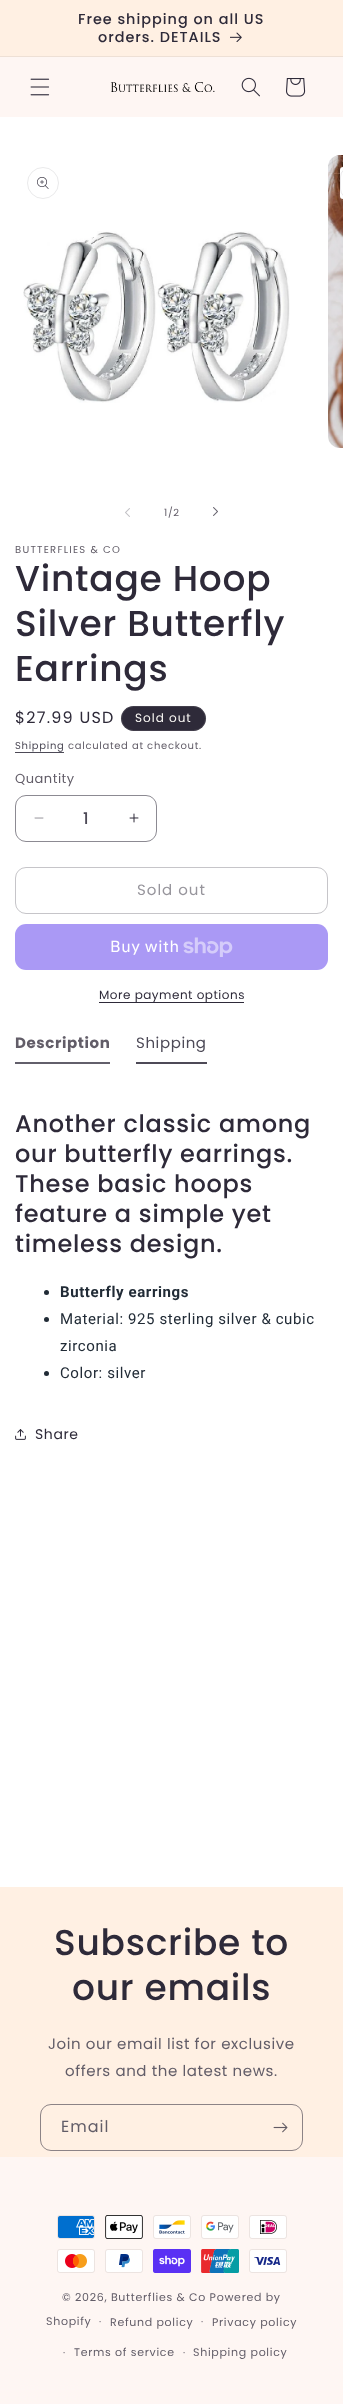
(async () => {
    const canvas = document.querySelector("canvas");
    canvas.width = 343;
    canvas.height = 2404;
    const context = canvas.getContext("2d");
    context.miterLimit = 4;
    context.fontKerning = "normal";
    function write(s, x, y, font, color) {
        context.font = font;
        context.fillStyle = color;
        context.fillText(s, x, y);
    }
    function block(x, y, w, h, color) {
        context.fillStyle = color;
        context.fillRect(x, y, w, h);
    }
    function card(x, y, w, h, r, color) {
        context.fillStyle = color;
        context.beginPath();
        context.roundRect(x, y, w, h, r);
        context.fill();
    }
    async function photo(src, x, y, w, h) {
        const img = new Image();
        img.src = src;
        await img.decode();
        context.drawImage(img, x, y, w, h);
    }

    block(0, 0, 343, 2404, "rgb(255, 255, 255)");
    block(0, 0, 343, 56, "rgb(255, 240, 227)");
    block(0, 56, 343, 1, "rgb(238, 224, 213)");
    context.letterSpacing = "1px";
    write("Free shipping on all US", 78, 24, "500 14.4px Poppins", "rgb(46, 42, 57)");
    write("orders. DETAILS", 98, 42, "500 14.4px Poppins", "rgb(46, 42, 57)");
    await photo("media/1.png", 230, 32, 12, 10);
    block(0, 57, 343, 60, "rgb(254, 246, 243)");
    await photo("media/2.png", 30, 78, 20, 18);
    await photo("media/3.png", 110, 82, 105, 10);
    await photo("media/4.png", 241, 77, 19, 20);
    await photo("media/5.png", 286, 78, 20, 19);
    context.beginPath();
    context.arc(43, 183, 15.5, 0, Math.PI * 2);
    context.strokeStyle = "rgb(234, 234, 235)";
    context.stroke();
    await photo("media/6.png", 37, 177, 12, 12);
    await photo("media/7.png", 23, 231, 267, 172);
    await photo("media/8.png", 328, 155, 15, 293);
    context.fillStyle = "rgb(255, 255, 255)";
    context.beginPath();
    context.roundRect(340, 167, 3, 32, [16, 0, 0, 16]);
    context.fill();
    context.beginPath();
    context.roundRect(340.5, 167.5, 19, 31, 15.5);
    context.strokeStyle = "rgba(46, 42, 57, 0.1)";
    context.stroke();
    await photo("media/9.png", 125, 508, 5, 9);
    context.letterSpacing = "0.7px";
    write("1/2", 164, 516, "10px Poppins", "rgb(98, 93, 104)");
    await photo("media/10.png", 213, 507, 5, 9);
    context.letterSpacing = "1.25px";
    write("BUTTERFLIES & CO", 15, 553, "10px Poppins", "rgb(98, 93, 104)");
    context.letterSpacing = "0.75px";
    write("Vintage Hoop", 15, 591, "500 36px Poppins", "rgb(46, 42, 57)");
    write("Silver Butterfly", 15, 636, "500 36px Poppins", "rgb(46, 42, 57)");
    write("Earrings", 15, 681, "500 36px Poppins", "rgb(46, 42, 57)");
    context.letterSpacing = "1.25px";
    write("$27.99 USD", 15, 723, "16px Poppins", "rgb(46, 42, 57)");
    card(121, 706, 85, 25, 12.5, "rgb(46, 42, 57)");
    context.beginPath();
    context.roundRect(121.5, 706.5, 84, 24, 12);
    context.strokeStyle = "rgba(253, 251, 247, 0.1)";
    context.stroke();
    context.letterSpacing = "1px";
    write("Sold out", 135, 722, "12px Poppins", "rgb(253, 251, 247)");
    context.letterSpacing = "0.7px";
    write("Shipping", 15, 749, "10px Poppins", "rgb(77, 74, 87)");
    block(15, 752, 49, 1, "rgb(77, 74, 87)");
    write("calculated at checkout.", 68, 749, "10px Poppins", "rgb(98, 93, 104)");
    context.letterSpacing = "0.5px";
    write("Quantity", 15, 783, "13px Poppins", "rgb(98, 93, 104)");
    await photo("media/11.png", 34, 817, 10, 2);
    await photo("media/12.png", 129, 813, 10, 10);
    context.beginPath();
    context.roundRect(15.5, 795.5, 141, 46, 10.5);
    context.strokeStyle = "rgb(140, 138, 146)";
    context.stroke();
    context.letterSpacing = "0px";
    write("1", 83, 824, "500 16px Poppins", "rgb(77, 74, 87)");
    context.beginPath();
    context.roundRect(15.5, 867.5, 312, 46, 10.5);
    context.strokeStyle = "rgb(198, 197, 201)";
    context.stroke();
    context.letterSpacing = "1px";
    write("Sold out", 137, 895, "15px Poppins", "rgb(151, 149, 156)");
    card(15, 924, 313, 46, 11, "rgb(170, 153, 245)");
    context.letterSpacing = "0.6px";
    write("Buy with", 110, 952, "16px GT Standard", "rgb(255, 255, 255)");
    await photo("media/13.png", 183, 937, 50, 20);
    block(99, 1002, 145, 1, "rgb(46, 42, 57)");
    context.letterSpacing = "0.5px";
    write("More payment options", 99, 999, "12px Poppins", "rgb(46, 42, 57)");
    block(15, 1062, 95, 2, "rgb(98, 95, 107)");
    context.letterSpacing = "0.6px";
    write("Description", 15, 1048, "bold 15px Poppins", "rgb(98, 93, 104)");
    block(136, 1062, 71, 2, "rgb(77, 74, 87)");
    write("Shipping", 136, 1048, "15px Poppins", "rgb(77, 74, 87)");
    context.letterSpacing = "0.75px";
    write("Another classic among", 15, 1132, "500 24px Poppins", "rgb(46, 42, 57)");
    write("our butterfly earrings.", 15, 1162, "500 24px Poppins", "rgb(46, 42, 57)");
    write("These basic hoops", 15, 1192, "500 24px Poppins", "rgb(46, 42, 57)");
    write("feature a simple yet", 15, 1222, "500 24px Poppins", "rgb(46, 42, 57)");
    write("timeless design.", 15, 1252, "500 24px Poppins", "rgb(46, 42, 57)");
    context.fillStyle = "rgb(33, 43, 54)";
    context.beginPath();
    context.arc(46.5, 1292.5, 2.5, 0, Math.PI * 2);
    context.fill();
    context.letterSpacing = "0.6px";
    write("Butterfly earrings", 60, 1297, "bold 15px Roboto", "rgb(33, 43, 54)");
    context.beginPath();
    context.arc(46.5, 1319.5, 2.5, 0, Math.PI * 2);
    context.fill();
    write("Material: 925 sterling silver & cubic", 60, 1324, "15px Roboto", "rgb(33, 43, 54)");
    write("zirconia", 60, 1351, "15px Roboto", "rgb(33, 43, 54)");
    context.beginPath();
    context.arc(46.5, 1373.5, 2.5, 0, Math.PI * 2);
    context.fill();
    write("Color: silver", 60, 1378, "15px Roboto", "rgb(33, 43, 54)");
    await photo("media/14.png", 15, 1429, 11, 11);
    write("Share", 35, 1439, "14px Poppins", "rgb(46, 42, 57)");
    block(0, 1887, 343, 270, "rgb(255, 240, 227)");
    context.letterSpacing = "0.75px";
    write("Subscribe to", 54, 1955, "500 36px Poppins", "rgb(46, 42, 57)");
    write("our emails", 72, 2000, "500 36px Poppins", "rgb(46, 42, 57)");
    context.letterSpacing = "0.6px";
    write("Join our email list for exclusive", 48, 2049, "15px Poppins", "rgb(98, 93, 104)");
    write("offers and the latest news.", 65, 2076, "15px Poppins", "rgb(98, 93, 104)");
    context.beginPath();
    context.roundRect(40.5, 2104.5, 262, 46, 10.5);
    context.strokeStyle = "rgb(140, 131, 134)";
    context.stroke();
    context.letterSpacing = "1px";
    write("Email", 61, 2132, "16px Poppins", "rgb(98, 93, 104)");
    await photo("media/15.png", 273, 2122, 15, 11);
    block(0, 2157, 343, 247, "rgb(254, 246, 243)");
    await photo("media/16.png", 57, 2215, 38, 24);
    await photo("media/17.png", 105, 2215, 38, 24);
    await photo("media/18.png", 153, 2215, 38, 24);
    await photo("media/19.png", 201, 2215, 38, 24);
    await photo("media/20.png", 249, 2215, 38, 24);
    await photo("media/21.png", 57, 2249, 38, 24);
    await photo("media/22.png", 105, 2249, 38, 24);
    await photo("media/23.png", 153, 2249, 38, 24);
    await photo("media/24.png", 201, 2249, 38, 24);
    await photo("media/25.png", 249, 2249, 38, 24);
    context.letterSpacing = "0.7px";
    write("© 2026, Butterflies & Co Powered by", 62, 2301, "11px Poppins", "rgb(98, 93, 104)");
    write("Shopify", 46, 2325, "11px Poppins", "rgb(98, 93, 104)");
    write("·", 99, 2325, "10px Poppins", "rgb(98, 93, 104)");
    write("Refund policy", 110, 2326, "11px Poppins", "rgb(98, 93, 104)");
    write("·", 201, 2325, "10px Poppins", "rgb(98, 93, 104)");
    write("Privacy policy", 212, 2326, "11px Poppins", "rgb(98, 93, 104)");
    write("·", 63, 2356, "10px Poppins", "rgb(98, 93, 104)");
    write("Terms of service", 74, 2356, "11px Poppins", "rgb(98, 93, 104)");
    write("·", 183, 2356, "10px Poppins", "rgb(98, 93, 104)");
    write("Shipping policy", 193, 2356, "11px Poppins", "rgb(98, 93, 104)");
})();
